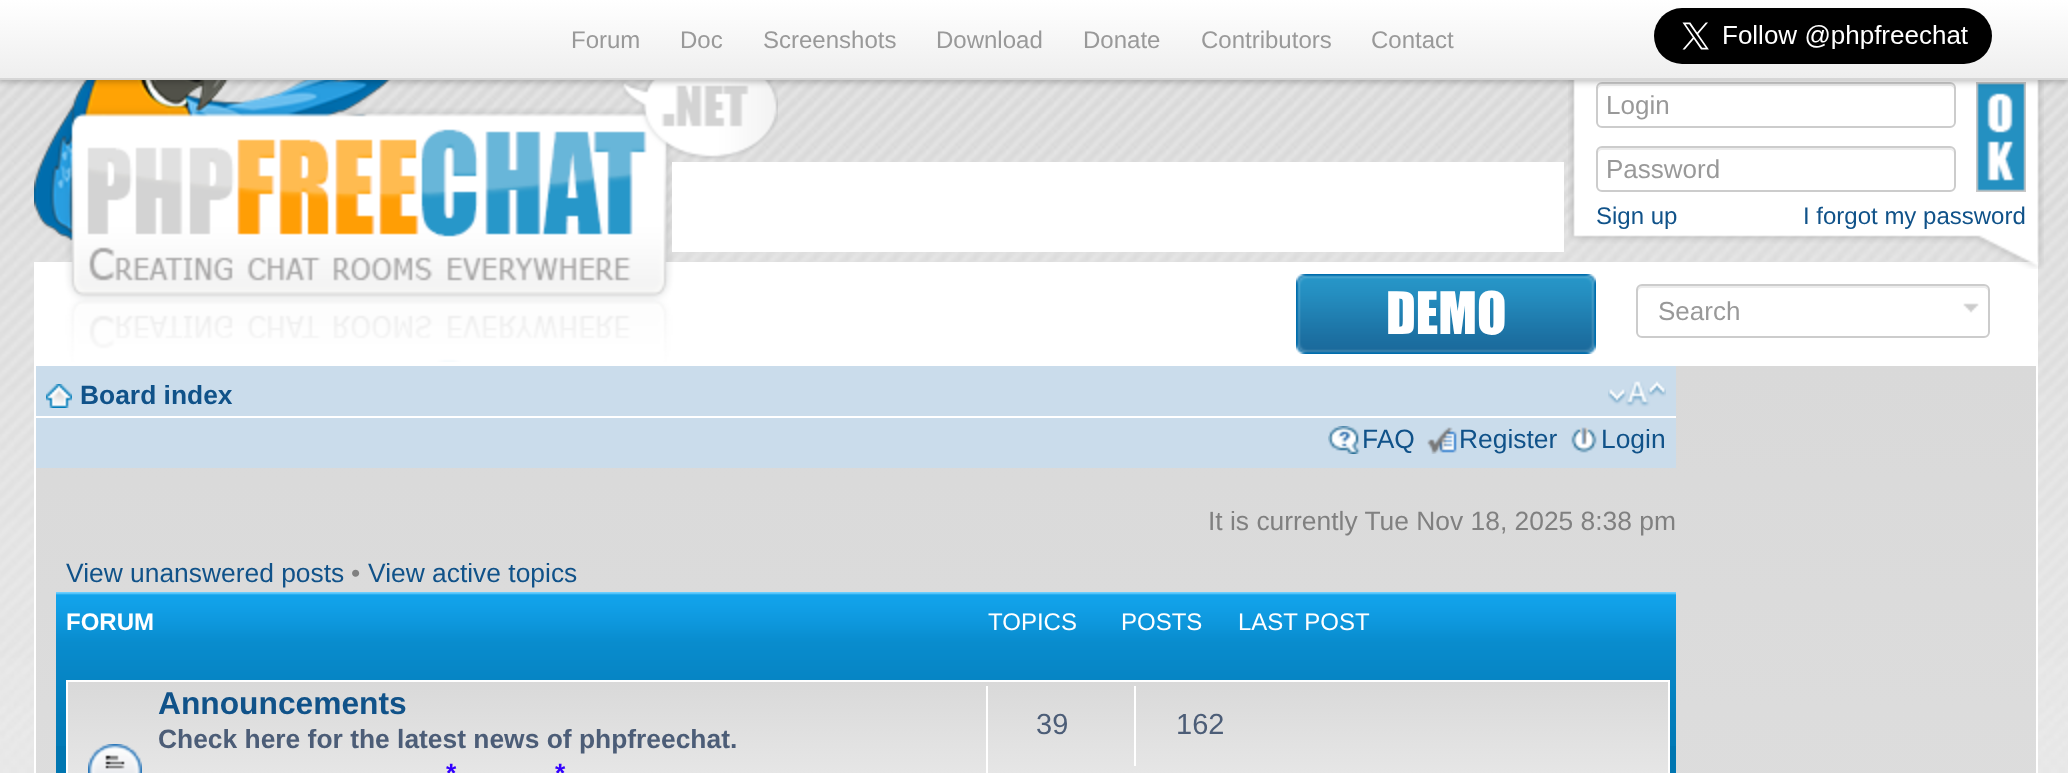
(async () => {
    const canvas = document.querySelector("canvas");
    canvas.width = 2068;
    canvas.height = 773;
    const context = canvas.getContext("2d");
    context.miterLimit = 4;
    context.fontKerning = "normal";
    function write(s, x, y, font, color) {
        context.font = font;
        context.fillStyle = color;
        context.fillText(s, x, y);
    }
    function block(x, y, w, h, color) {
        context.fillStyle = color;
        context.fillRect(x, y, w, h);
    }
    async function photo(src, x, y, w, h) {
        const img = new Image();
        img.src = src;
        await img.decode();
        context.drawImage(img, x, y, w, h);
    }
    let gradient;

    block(0, 0, 2068, 773, "rgb(255, 255, 255)");
    await photo("media/1.png", 0, 80, 2068, 693);
    block(34, 262, 2004, 102, "rgb(255, 255, 255)");
    await photo("media/3.png", 34, 80, 744, 282);
    await photo("media/4.png", 1568, 80, 476, 189);
    context.fillStyle = "rgb(236, 236, 236)";
    context.beginPath();
    context.moveTo(1602, 86);
    context.lineTo(1950, 86);
    context.bezierCurveTo(1952, 86, 1954, 88, 1954, 90);
    context.lineTo(1954, 88);
    context.bezierCurveTo(1954, 86, 1952, 84, 1950, 84);
    context.lineTo(1602, 84);
    context.bezierCurveTo(1600, 84, 1598, 86, 1598, 88);
    context.lineTo(1598, 90);
    context.bezierCurveTo(1598, 88, 1600, 86, 1602, 86);
    context.closePath();
    context.fill();
    context.beginPath();
    context.roundRect(1597, 83, 358, 44, 5);
    context.strokeStyle = "rgb(204, 204, 204)";
    context.lineWidth = 2;
    context.stroke();
    await photo("media/5.png", 1976, 82, 50, 110);
    context.fillStyle = "rgba(0, 0, 0, 0.25)";
    context.filter = "blur(3px)";
    context.beginPath();
    context.rect(0, 2, 2068, 80);
    context.fill();
    context.filter = "none";
    gradient = context.createLinearGradient(1034, 0, 1034, 80);
    gradient.addColorStop(0, "rgb(255, 255, 255)");
    gradient.addColorStop(1, "rgb(238, 238, 238)");
    context.fillStyle = gradient;
    context.fillRect(0, 0, 2068, 78);
    block(0, 78, 2068, 2, "rgb(214, 214, 214)");
    write("Forum", 571, 48, "24px Liberation Sans", "rgb(153, 153, 153)");
    write("Doc", 680, 48, "24px Liberation Sans", "rgb(153, 153, 153)");
    write("Screenshots", 763, 48, "24px Liberation Sans", "rgb(153, 153, 153)");
    write("Download", 936, 48, "24px Liberation Sans", "rgb(153, 153, 153)");
    write("Donate", 1083, 48, "24px Liberation Sans", "rgb(153, 153, 153)");
    write("Contributors", 1201, 48, "24px Liberation Sans", "rgb(153, 153, 153)");
    write("Contact", 1371, 48, "24px Liberation Sans", "rgb(153, 153, 153)");
    await photo("media/2.png", 1654, 8, 338, 56);
    write("Login", 1606, 114, "26px Liberation Sans", "rgb(153, 153, 153)");
    context.fillStyle = "rgb(236, 236, 236)";
    context.beginPath();
    context.moveTo(1602, 150);
    context.lineTo(1950, 150);
    context.bezierCurveTo(1952, 150, 1954, 152, 1954, 154);
    context.lineTo(1954, 152);
    context.bezierCurveTo(1954, 150, 1952, 148, 1950, 148);
    context.lineTo(1602, 148);
    context.bezierCurveTo(1600, 148, 1598, 150, 1598, 152);
    context.lineTo(1598, 154);
    context.bezierCurveTo(1598, 152, 1600, 150, 1602, 150);
    context.closePath();
    context.fill();
    context.beginPath();
    context.roundRect(1597, 147, 358, 44, 5);
    context.stroke();
    write("Password", 1606, 178, "26px Liberation Sans", "rgb(153, 153, 153)");
    write("Sign up", 1596, 224, "24px Liberation Sans", "rgb(16, 82, 137)");
    write("I forgot my password", 1803, 224, "24px Liberation Sans", "rgb(16, 82, 137)");
    block(672, 162, 892, 90, "rgb(255, 255, 255)");
    await photo("media/6.png", 1296, 274, 300, 80);
    write("DEMO", 1386, 334, "54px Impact", "rgb(255, 255, 255)");
    context.fillStyle = "rgb(236, 236, 236)";
    context.beginPath();
    context.moveTo(1642, 288);
    context.lineTo(1984, 288);
    context.bezierCurveTo(1986, 288, 1988, 290, 1988, 292);
    context.bezierCurveTo(1988, 289, 1988, 286, 1984, 286);
    context.lineTo(1641, 286);
    context.bezierCurveTo(1638, 287, 1638, 289, 1638, 292);
    context.bezierCurveTo(1638, 290, 1640, 288, 1642, 288);
    context.closePath();
    context.fill();
    context.beginPath();
    context.roundRect(1637, 285, 352, 52, 5);
    context.stroke();
    write("Search", 1658, 320, "26px Liberation Sans", "rgb(153, 153, 153)");
    await photo("media/7.png", 1963, 303, 16, 10);
    gradient = context.createLinearGradient(1036, 366, 1036, 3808);
    gradient.addColorStop(0, "rgb(217, 217, 217)");
    gradient.addColorStop(1, "rgb(247, 247, 247)");
    context.fillStyle = gradient;
    context.fillRect(36, 366, 2000, 407);
    context.strokeStyle = "rgb(255, 255, 255)";
    context.strokeRect(35, 365, 2002, 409);
    block(36, 366, 1640, 102, "rgb(202, 220, 235)");
    block(36, 416, 1640, 2, "rgb(255, 255, 255)");
    await photo("media/8.png", 46, 384, 26, 24);
    write("Board index", 80, 404, "bold 26.4px Liberation Sans", "rgb(16, 82, 137)");
    await photo("media/9.png", 1608, 381, 58, 26);
    await photo("media/10.png", 1328, 426, 32, 28);
    write("FAQ", 1362, 448, "26.4px Liberation Sans", "rgb(16, 82, 137)");
    await photo("media/11.png", 1427, 427, 30, 27);
    write("Register", 1459, 448, "26.4px Liberation Sans", "rgb(16, 82, 137)");
    await photo("media/12.png", 1571, 427, 26, 26);
    write("Login", 1601, 448, "26.4px Liberation Sans", "rgb(16, 82, 137)");
    write("It is currently Tue Nov 18, 2025 8:38 pm", 1208, 530, "26.4px Liberation Sans", "rgb(128, 128, 128)");
    write("View unanswered posts", 66, 582, "26.4px Liberation Sans", "rgb(16, 82, 137)");
    write("•", 351, 582, "26.4px Liberation Sans", "rgb(128, 128, 128)");
    write("View active topics", 368, 582, "26.4px Liberation Sans", "rgb(16, 82, 137)");
    block(56, 746, 1620, 27, "rgb(0, 118, 177)");
    await photo("media/13.png", 56, 592, 1620, 154);
    write("FORUM", 66, 630, "bold 24px Liberation Sans", "rgb(255, 255, 255)");
    write("TOPICS", 988, 630, "24px Liberation Sans", "rgb(255, 255, 255)");
    write("POSTS", 1121, 630, "24px Liberation Sans", "rgb(255, 255, 255)");
    write("LAST POST", 1238, 630, "24px Liberation Sans", "rgb(255, 255, 255)");
    gradient = context.createLinearGradient(868, 682, 868, 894);
    gradient.addColorStop(0, "rgb(217, 217, 217)");
    gradient.addColorStop(1, "rgb(247, 247, 247)");
    context.fillStyle = gradient;
    context.fillRect(68, 682, 1600, 91);
    block(66, 680, 1604, 2, "rgb(255, 255, 255)");
    block(1668, 680, 2, 93, "rgb(255, 255, 255)");
    block(66, 680, 2, 93, "rgb(255, 255, 255)");
    await photo("media/14.png", 88, 744, 54, 29);
    write("Announcements", 158, 714, "bold 31.75px Liberation Sans", "rgb(16, 82, 137)");
    write("Check here for the latest news of phpfreechat.", 158, 748, "bold 26.4px Liberation Sans", "rgb(76, 93, 119)");
    write("*", 446, 782, "bold 26.4px Liberation Sans", "rgb(51, 0, 255)");
    write("*", 555, 782, "bold 26.4px Liberation Sans", "rgb(51, 0, 255)");
    block(986, 686, 2, 87, "rgb(255, 255, 255)");
    write("39", 1036, 734, "29px Liberation Sans", "rgb(76, 93, 119)");
    block(1134, 686, 2, 80, "rgb(255, 255, 255)");
    write("162", 1176, 734, "29px Liberation Sans", "rgb(76, 93, 119)");
})();
